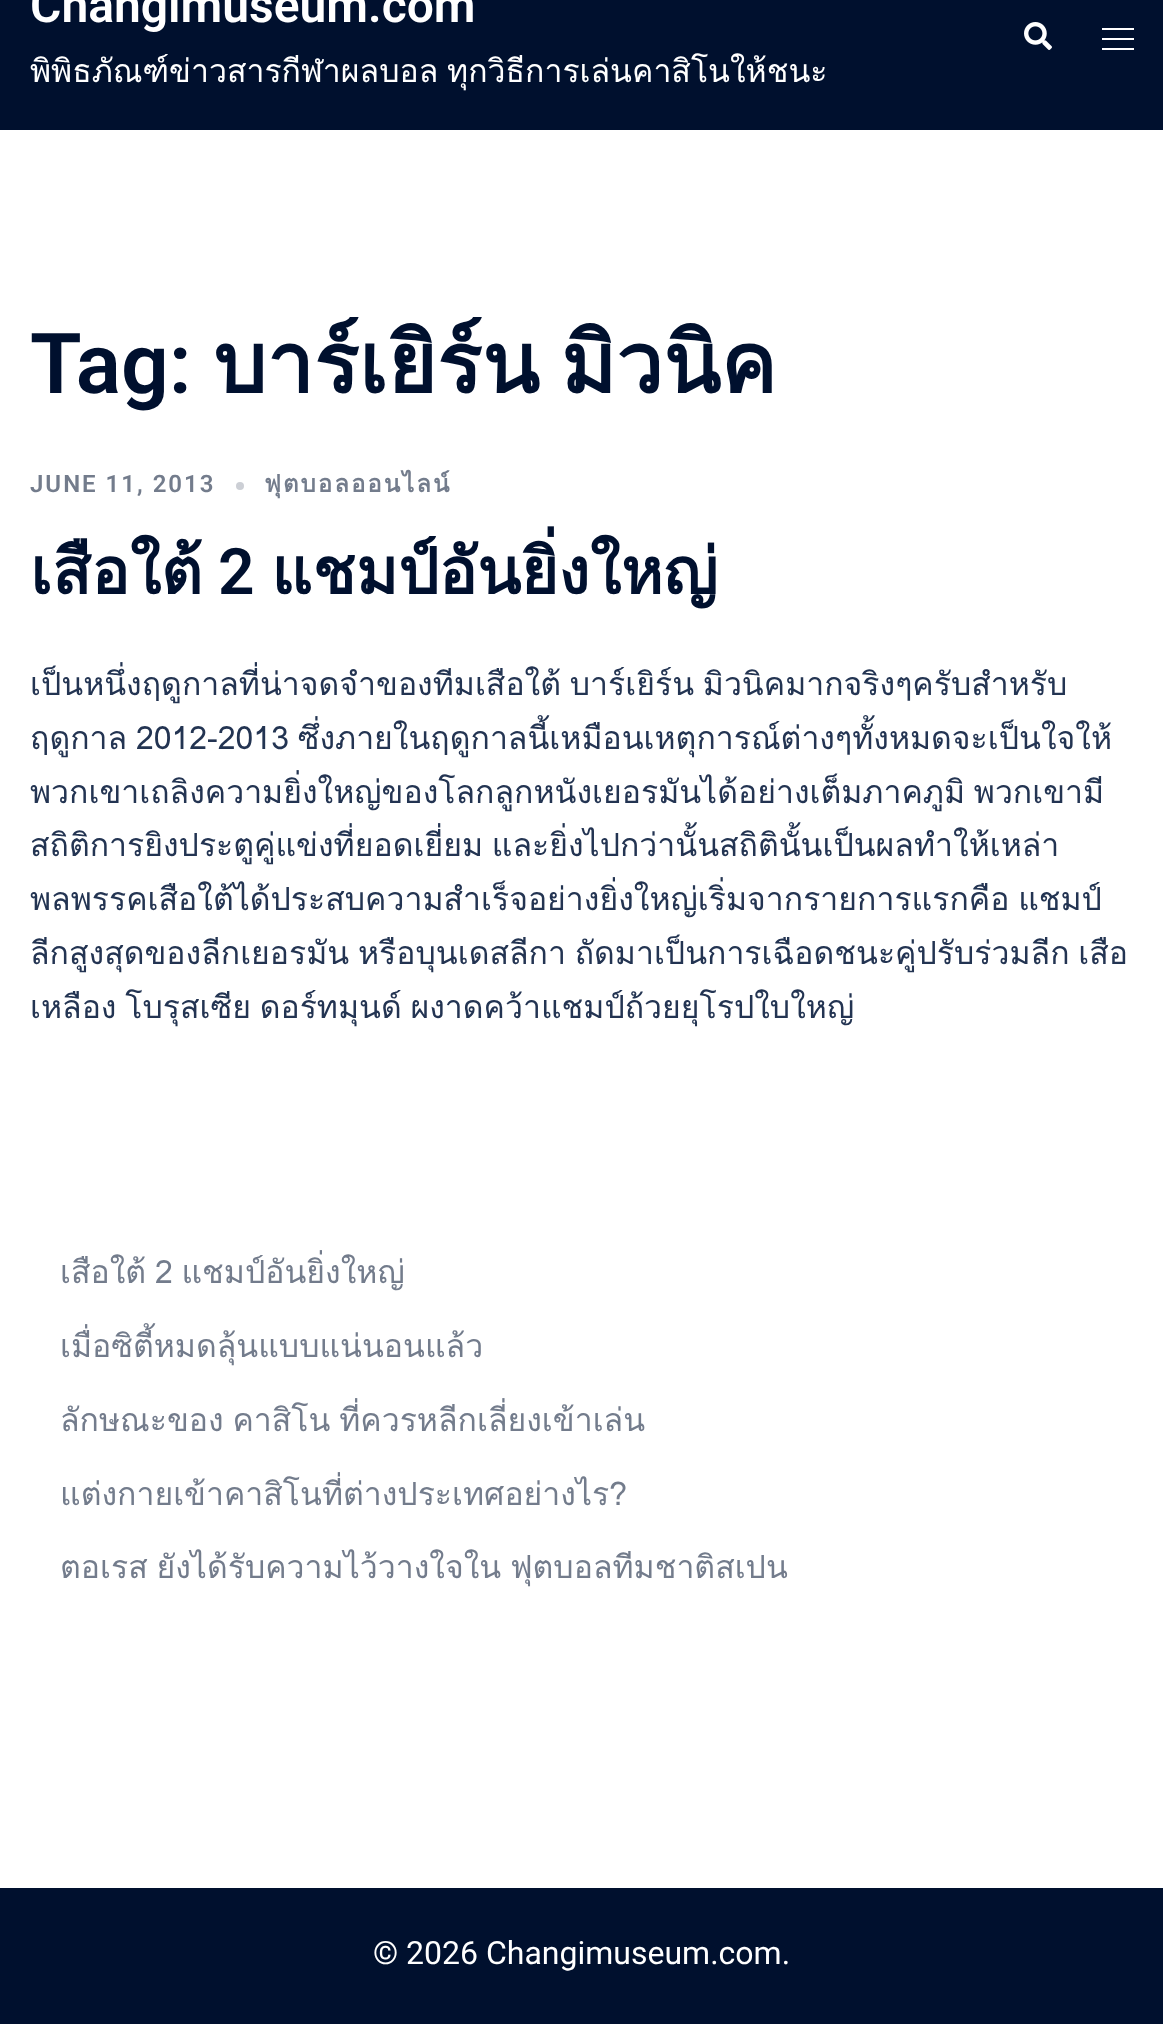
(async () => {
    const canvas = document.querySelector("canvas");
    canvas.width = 1163;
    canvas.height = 2024;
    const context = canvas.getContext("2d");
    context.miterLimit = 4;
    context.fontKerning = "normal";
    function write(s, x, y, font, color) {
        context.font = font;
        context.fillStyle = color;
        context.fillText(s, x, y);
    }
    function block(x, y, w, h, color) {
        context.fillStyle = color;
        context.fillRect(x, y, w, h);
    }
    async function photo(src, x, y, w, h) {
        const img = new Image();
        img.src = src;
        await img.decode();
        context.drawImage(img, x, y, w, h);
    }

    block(0, 0, 1163, 2024, "rgb(255, 255, 255)");
    block(0, 0, 1163, 130, "rgb(0, 16, 46)");
    write("Changimuseum.com", 30, 22, "600 48px Roboto", "rgb(255, 255, 255)");
    context.wordSpacing = "-2px";
    write("พิพิธภัณฑ์ข่าวสารกีฬาผลบอล ทุกวิธีการเล่นคาสิโนให้ชนะ", 30, 82, "32px Loma", "rgb(255, 255, 255)");
    await photo("media/1.png", 1024, 22, 28, 28);
    block(1102, 28, 32, 2, "rgb(255, 255, 255)");
    block(1102, 38, 32, 2, "rgb(255, 255, 255)");
    block(1102, 48, 32, 2, "rgb(255, 255, 255)");
    context.wordSpacing = "0px";
    write("Tag:", 30, 393, "600 84px Roboto", "rgb(0, 16, 46)");
    context.wordSpacing = "-7px";
    write("บาร์เยิร์น มิวนิค", 213, 393, "bold 84px Loma", "rgb(0, 16, 46)");
    context.letterSpacing = "2px";
    context.wordSpacing = "0px";
    write("JUNE 11, 2013", 30, 492, "600 24px Roboto", "rgb(115, 124, 140)");
    context.fillStyle = "rgb(204, 207, 213)";
    context.beginPath();
    context.arc(240, 486, 4, 0, Math.PI * 2);
    context.fill();
    write("ฟุตบอลออนไลน์", 264, 492, "bold 24px Loma", "rgb(115, 124, 140)");
    context.letterSpacing = "0px";
    write("เสือใต้", 30, 594, "bold 64px Loma", "rgb(0, 16, 46)");
    write("2", 218, 594, "600 64px Roboto", "rgb(0, 16, 46)");
    write("แชมป์อันยิ่งใหญ่", 271, 594, "bold 64px Loma", "rgb(0, 16, 46)");
    context.wordSpacing = "-2px";
    write("เป็นหนึ่งฤดูกาลที่น่าจดจำของทีมเสือใต้ บาร์เยิร์น มิวนิคมากจริงๆครับสำหรับ", 30, 695, "32px Loma", "rgb(35, 52, 82)");
    write("ฤดูกาล 2012-2013 ซึ่งภายในฤดูกาลนี้เหมือนเหตุการณ์ต่างๆทั้งหมดจะเป็นใจให้", 30, 749, "32px Loma", "rgb(35, 52, 82)");
    write("พวกเขาเถลิงความยิ่งใหญ่ของโลกลูกหนังเยอรมันได้อย่างเต็มภาคภูมิ พวกเขามี", 30, 803, "32px Loma", "rgb(35, 52, 82)");
    write("สถิติการยิงประตูคู่แข่งที่ยอดเยี่ยม และยิ่งไปกว่านั้นสถิตินั้นเป็นผลทำให้เหล่า", 30, 856, "32px Loma", "rgb(35, 52, 82)");
    write("พลพรรคเสือใต้ได้ประสบความสำเร็จอย่างยิ่งใหญ่เริ่มจากรายการแรกคือ แชมป์", 30, 910, "32px Loma", "rgb(35, 52, 82)");
    write("ลีกสูงสุดของลีกเยอรมัน หรือบุนเดสลีกา ถัดมาเป็นการเฉือดชนะคู่ปรับร่วมลีก เสือ", 30, 964, "32px Loma", "rgb(35, 52, 82)");
    write("เหลือง โบรุสเซีย ดอร์ทมุนด์ ผงาดคว้าแชมป์ถ้วยยุโรปใบใหญ่", 30, 1018, "32px Loma", "rgb(35, 52, 82)");
    write("เสือใต้ 2 แชมป์อันยิ่งใหญ่", 60, 1283, "32px Loma", "rgb(115, 124, 140)");
    context.wordSpacing = "0px";
    write("เมื่อซิตี้หมดลุ้นแบบแน่นอนแล้ว", 60, 1357, "32px Loma", "rgb(115, 124, 140)");
    context.wordSpacing = "-2px";
    write("ลักษณะของ คาสิโน ที่ควรหลีกเลี่ยงเข้าเล่น", 60, 1431, "32px Loma", "rgb(115, 124, 140)");
    context.wordSpacing = "0px";
    write("แต่งกายเข้าคาสิโนที่ต่างประเทศอย่างไร?", 60, 1505, "32px Loma", "rgb(115, 124, 140)");
    context.wordSpacing = "-2px";
    write("ตอเรส ยังได้รับความไว้วางใจใน ฟุตบอลทีมชาติสเปน", 60, 1578, "32px Loma", "rgb(115, 124, 140)");
    block(0, 1888, 1163, 136, "rgb(0, 16, 46)");
    context.wordSpacing = "0px";
    write("© 2026 Changimuseum.com.", 373, 1964, "32px Roboto", "rgb(255, 255, 255)");
})();
